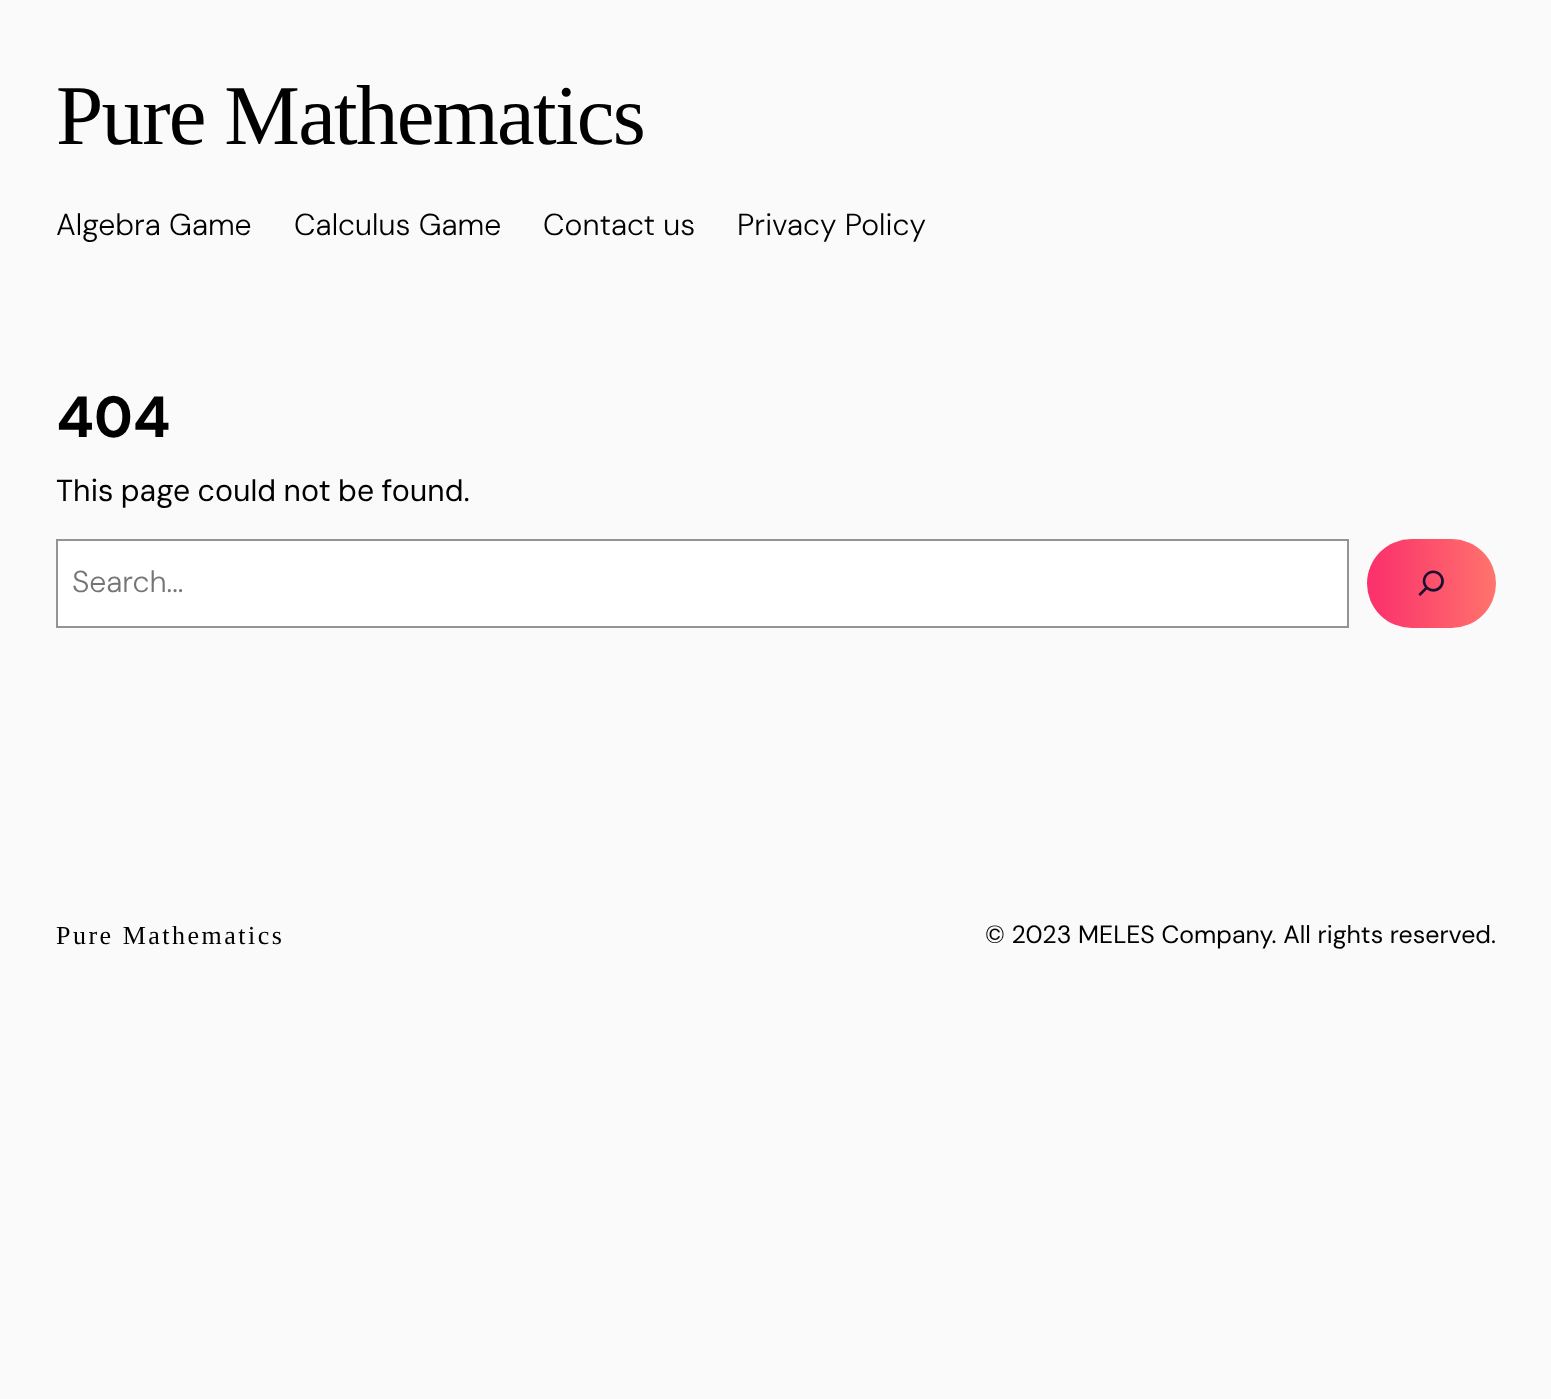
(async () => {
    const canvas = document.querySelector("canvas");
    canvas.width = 1551;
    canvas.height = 1399;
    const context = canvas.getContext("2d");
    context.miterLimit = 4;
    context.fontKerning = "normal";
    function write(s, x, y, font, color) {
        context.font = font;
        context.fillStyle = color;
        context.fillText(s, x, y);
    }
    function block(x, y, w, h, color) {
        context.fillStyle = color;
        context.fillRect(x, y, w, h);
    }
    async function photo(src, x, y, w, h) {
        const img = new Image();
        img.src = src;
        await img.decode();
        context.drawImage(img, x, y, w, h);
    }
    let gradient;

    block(0, 0, 1551, 1399, "rgb(250, 250, 250)");
    context.letterSpacing = "-1.75px";
    write("Pure Mathematics", 56, 144, "85px Liberation Serif", "rgb(0, 0, 0)");
    context.letterSpacing = "0px";
    write("Algebra Game", 56, 235, "300 30.25px DM Sans", "rgb(0, 0, 0)");
    write("Calculus Game", 294, 235, "300 30.25px DM Sans", "rgb(0, 0, 0)");
    write("Contact us", 543, 235, "300 30.25px DM Sans", "rgb(0, 0, 0)");
    write("Privacy Policy", 737, 235, "300 30.25px DM Sans", "rgb(0, 0, 0)");
    context.letterSpacing = "-0.5px";
    write("404", 56, 437, "bold 58px DM Sans", "rgb(0, 0, 0)");
    context.letterSpacing = "0px";
    context.wordSpacing = "-0.75px";
    write("This page could not be found.", 56, 501, "30.25px DM Sans", "rgb(0, 0, 0)");
    context.fillStyle = "rgb(255, 255, 255)";
    context.beginPath();
    context.rect(57, 540, 1291, 87);
    context.fill();
    context.strokeStyle = "rgb(148, 148, 148)";
    context.lineWidth = 2;
    context.stroke();
    context.wordSpacing = "0px";
    write("Search...", 72, 592, "300 30.25px DM Sans", "rgb(117, 117, 117)");
    gradient = context.createLinearGradient(1367, 584, 1496, 584);
    gradient.addColorStop(0.06, "rgb(251, 50, 107)");
    gradient.addColorStop(1, "rgb(255, 116, 109)");
    context.fillStyle = gradient;
    context.beginPath();
    context.roundRect(1367, 539, 129, 89, 44.5);
    context.fill();
    await photo("media/1.png", 1418, 570, 26, 26);
    context.letterSpacing = "2.5px";
    write("Pure Mathematics", 56, 944, "26px Liberation Serif", "rgb(0, 0, 0)");
    context.letterSpacing = "0px";
    write("© 2023 MELES Company. All rights reserved.", 985, 943, "24.95px 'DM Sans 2'", "rgb(0, 0, 0)");
})();
